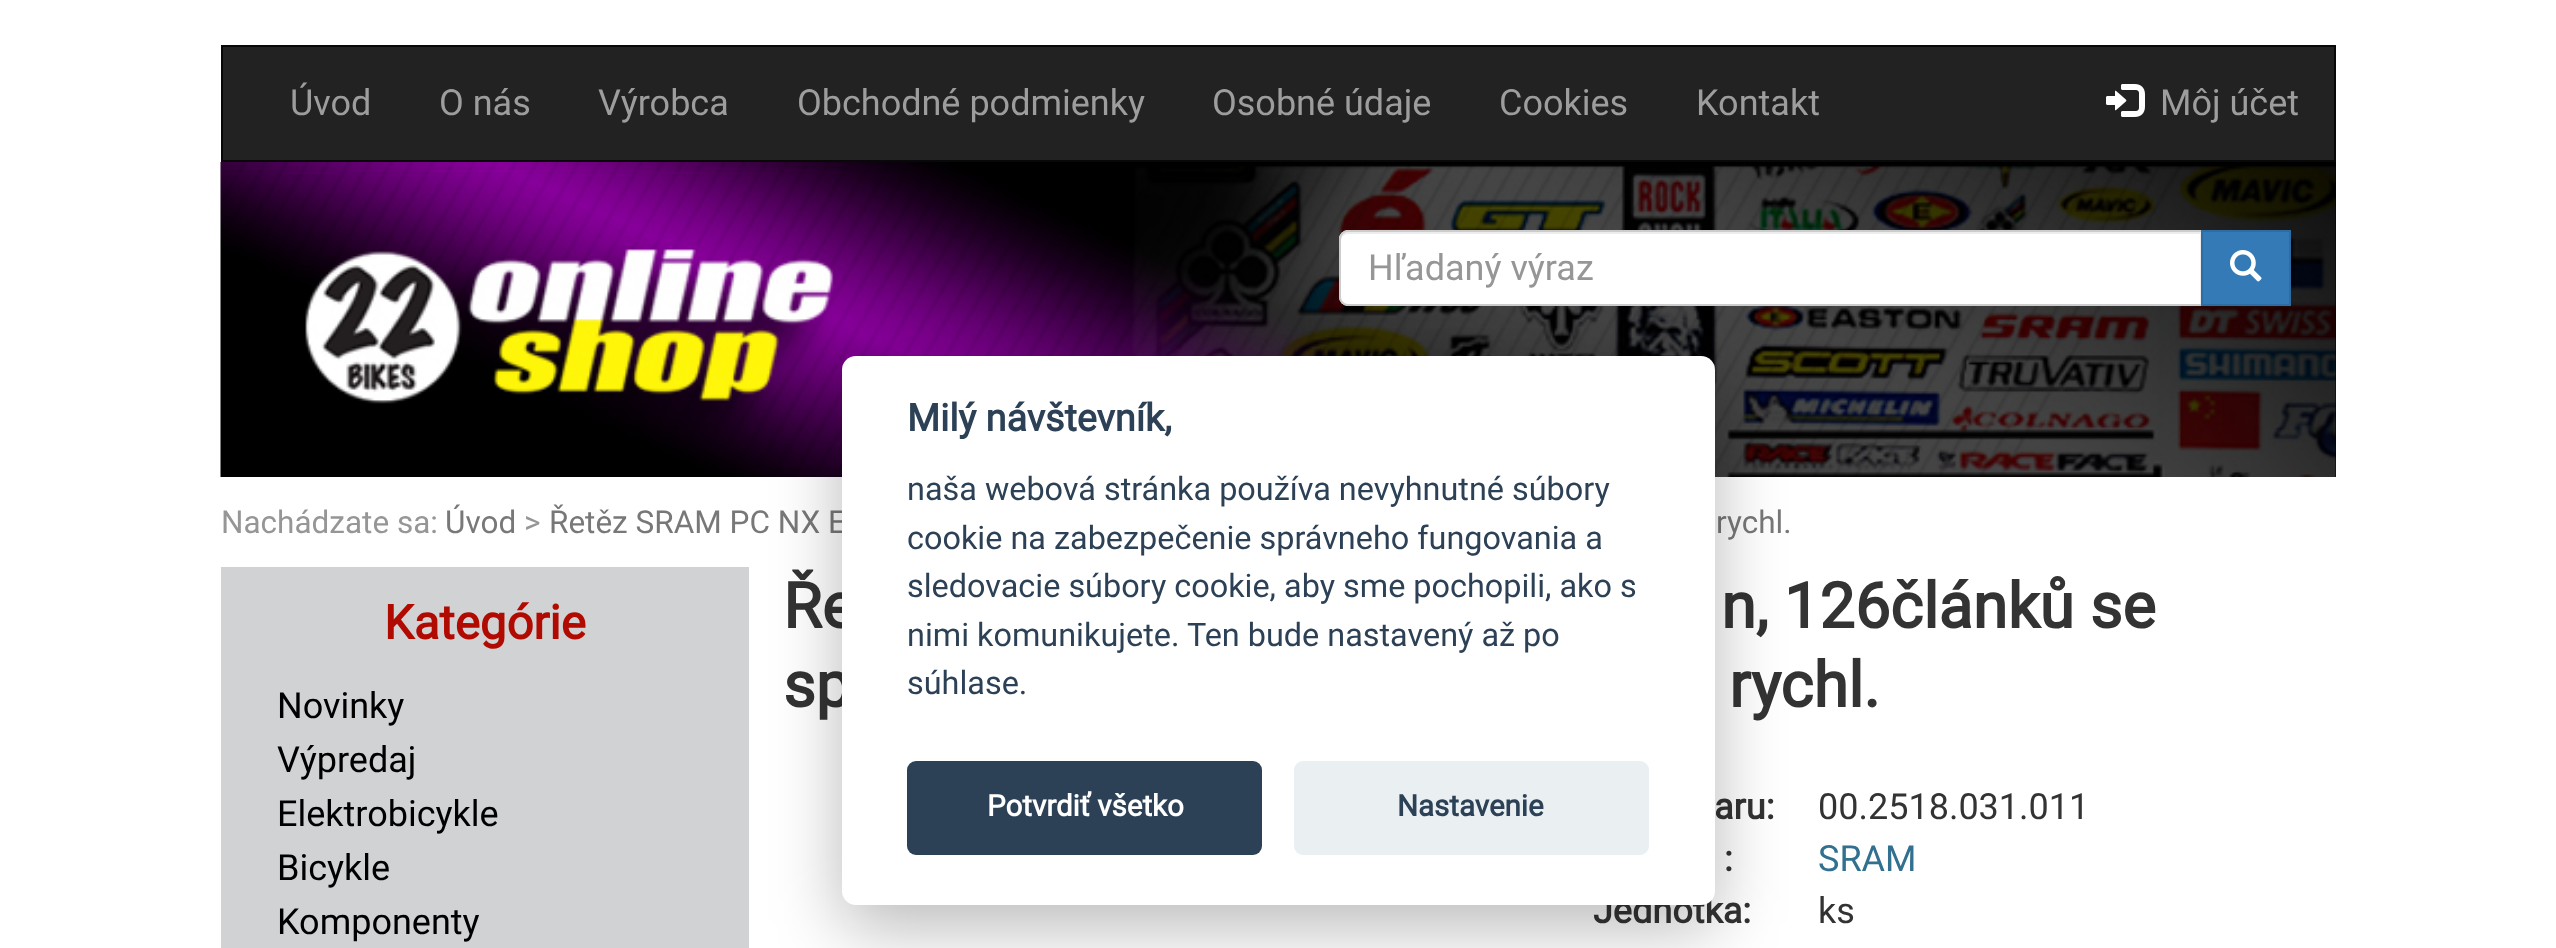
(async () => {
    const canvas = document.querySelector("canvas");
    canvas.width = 2556;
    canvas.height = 948;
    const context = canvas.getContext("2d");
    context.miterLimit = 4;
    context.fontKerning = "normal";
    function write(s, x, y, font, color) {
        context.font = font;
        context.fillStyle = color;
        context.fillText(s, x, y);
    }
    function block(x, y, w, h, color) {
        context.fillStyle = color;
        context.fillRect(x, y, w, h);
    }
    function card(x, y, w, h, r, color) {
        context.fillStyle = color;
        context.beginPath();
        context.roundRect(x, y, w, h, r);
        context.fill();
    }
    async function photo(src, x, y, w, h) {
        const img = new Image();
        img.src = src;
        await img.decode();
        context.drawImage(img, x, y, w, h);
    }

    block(0, 0, 2556, 948, "rgb(255, 255, 255)");
    context.fillStyle = "rgb(34, 34, 34)";
    context.beginPath();
    context.rect(222, 46, 2113, 115);
    context.fill();
    context.strokeStyle = "rgb(8, 8, 8)";
    context.lineWidth = 2;
    context.stroke();
    write("Úvod", 290, 115, "36px Roboto", "rgb(157, 157, 157)");
    write("O nás", 439, 115, "36px Roboto", "rgb(157, 157, 157)");
    write("Výrobca", 598, 115, "36px Roboto", "rgb(157, 157, 157)");
    write("Obchodné podmienky", 797, 115, "36px Roboto", "rgb(157, 157, 157)");
    write("Osobné údaje", 1212, 115, "36px Roboto", "rgb(157, 157, 157)");
    write("Cookies", 1499, 115, "36px Roboto", "rgb(157, 157, 157)");
    write("Kontakt", 1696, 115, "36px Roboto", "rgb(157, 157, 157)");
    await photo("media/1.png", 2106, 84, 39, 33);
    write("Môj účet", 2160, 115, "36px Roboto", "rgb(157, 157, 157)");
    block(2335, 162, 1, 315, "rgb(0, 0, 0)");
    await photo("media/2.png", 220, 162, 2116, 315);
    context.fillStyle = "rgb(255, 255, 255)";
    context.beginPath();
    context.roundRect(1339, 230, 864, 76, [9, 0, 0, 9]);
    context.fill();
    context.fillStyle = "rgb(236, 236, 236)";
    context.beginPath();
    context.moveTo(1348, 234);
    context.lineTo(2200, 234);
    context.lineTo(2200, 304);
    context.lineTo(2201, 304);
    context.lineTo(2201, 232);
    context.lineTo(1348, 232);
    context.bezierCurveTo(1344, 232, 1341, 235, 1341, 239);
    context.lineTo(1341, 241);
    context.bezierCurveTo(1341, 237, 1344, 234, 1348, 234);
    context.closePath();
    context.fill();
    context.beginPath();
    context.roundRect(1340, 231, 862, 74, [8, 0, 0, 8]);
    context.strokeStyle = "rgb(204, 204, 204)";
    context.stroke();
    write("Hľadaný výraz", 1368, 280, "36px Roboto", "rgb(150, 150, 150)");
    context.fillStyle = "rgb(51, 122, 183)";
    context.beginPath();
    context.rect(2202, 231, 88, 74);
    context.fill();
    context.strokeStyle = "rgb(46, 109, 164)";
    context.stroke();
    await photo("media/3.png", 2230, 250, 32, 32);
    write("Nachádzate sa:", 221, 533, "31.5px Roboto", "rgb(150, 150, 150)");
    write("Úvod", 445, 533, "31.5px Roboto", "rgb(120, 120, 120)");
    write(">", 524, 533, "31.5px Roboto", "rgb(150, 150, 150)");
    write("Řetěz SRAM PC NX E", 549, 533, "31.5px Roboto", "rgb(120, 120, 120)");
    write("rychl.", 1716, 533, "31.5px Roboto", "rgb(120, 120, 120)");
    block(221, 567, 528, 381, "rgb(209, 210, 212)");
    write("Kategórie", 384, 639, "bold 47.25px Roboto", "rgb(177, 10, 1)");
    write("Novinky", 277, 718, "36px Roboto", "rgb(0, 0, 0)");
    write("Výpredaj", 277, 772, "36px Roboto", "rgb(0, 0, 0)");
    write("Elektrobicykle", 277, 826, "36px Roboto", "rgb(0, 0, 0)");
    write("Bicykle", 277, 880, "36px Roboto", "rgb(0, 0, 0)");
    write("Komponenty", 277, 934, "36px Roboto", "rgb(0, 0, 0)");
    write("Ře", 783, 628, "bold 63px Roboto", "rgb(51, 51, 51)");
    write("n, 126článků se", 1721, 628, "bold 63px Roboto", "rgb(51, 51, 51)");
    write("sp", 783, 707, "bold 63px Roboto", "rgb(51, 51, 51)");
    write("rychl.", 1729, 707, "bold 63px Roboto", "rgb(51, 51, 51)");
    write("aru:", 1714, 819, "bold 36px Roboto", "rgb(51, 51, 51)");
    write("00.2518.031.011", 1818, 819, "36px Roboto", "rgb(51, 51, 51)");
    write(":", 1724, 871, "bold 36px Roboto", "rgb(51, 51, 51)");
    write("SRAM", 1818, 871, "36px Roboto", "rgb(49, 112, 143)");
    write("Jednotka:", 1593, 923, "bold 36px Roboto", "rgb(51, 51, 51)");
    write("ks", 1818, 923, "36px Roboto", "rgb(51, 51, 51)");
    context.fillStyle = "rgba(2, 2, 3, 0.28)";
    context.filter = "blur(34px)";
    context.beginPath();
    context.roundRect(842, 378, 873, 549, 14);
    context.fill();
    context.filter = "none";
    card(842, 356, 873, 549, 14, "rgb(255, 255, 255)");
    write("Milý návštevník,", 907, 431, "bold 37.75px Roboto", "rgb(45, 65, 86)");
    write("naša webová stránka používa nevyhnutné súbory", 907, 500, "32.4px Roboto", "rgb(45, 65, 86)");
    write("cookie na zabezpečenie správneho fungovania a", 907, 549, "32.4px Roboto", "rgb(45, 65, 86)");
    write("sledovacie súbory cookie, aby sme pochopili, ako s", 907, 597, "32.4px Roboto", "rgb(45, 65, 86)");
    write("nimi komunikujete. Ten bude nastavený až po", 907, 646, "32.4px Roboto", "rgb(45, 65, 86)");
    write("súhlase.", 907, 694, "32.4px Roboto", "rgb(45, 65, 86)");
    card(907, 761, 355, 94, 9, "rgb(45, 65, 86)");
    write("Potvrdiť všetko", 987, 816, "bold 29.5px Roboto", "rgb(255, 255, 255)");
    card(1294, 761, 355, 94, 9, "rgb(234, 239, 242)");
    write("Nastavenie", 1397, 816, "bold 29.5px Roboto", "rgb(45, 65, 86)");
})();
